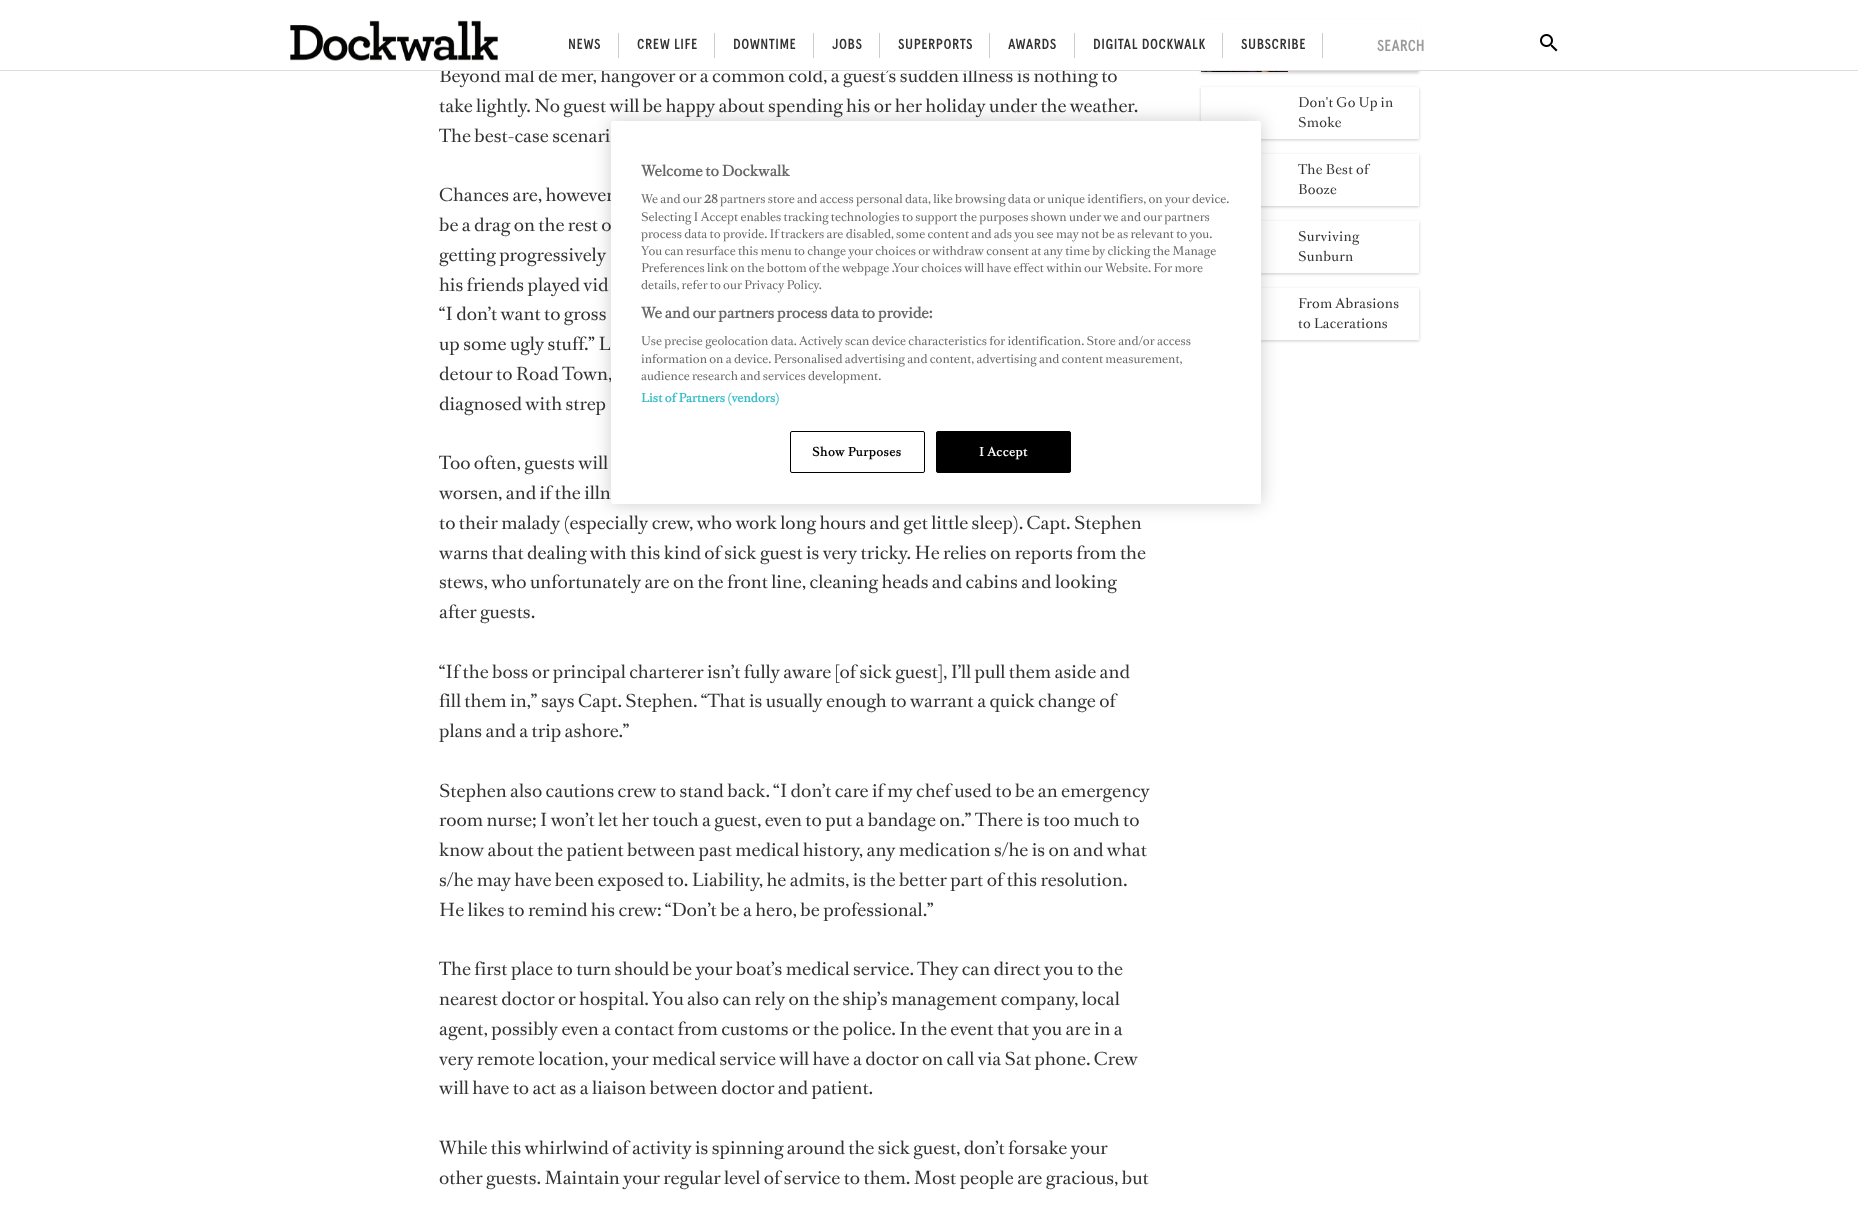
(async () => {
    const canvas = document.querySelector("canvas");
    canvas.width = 1858;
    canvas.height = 1209;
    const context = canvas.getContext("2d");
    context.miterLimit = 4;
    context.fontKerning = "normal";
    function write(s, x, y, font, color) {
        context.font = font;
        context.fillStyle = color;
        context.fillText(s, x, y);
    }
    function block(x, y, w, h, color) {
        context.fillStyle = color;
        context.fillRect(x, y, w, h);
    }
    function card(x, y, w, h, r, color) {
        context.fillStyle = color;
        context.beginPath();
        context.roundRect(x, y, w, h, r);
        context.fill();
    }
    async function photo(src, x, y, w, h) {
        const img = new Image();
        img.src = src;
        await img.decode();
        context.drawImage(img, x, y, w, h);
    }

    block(0, 0, 1858, 1209, "rgb(255, 255, 255)");
    write("Beyond mal de mer, hangover or a common cold, a guest’s sudden illness is nothing to", 439, 82, "17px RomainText", "rgb(51, 51, 51)");
    context.fillStyle = "rgba(0, 0, 0, 0.2)";
    context.filter = "blur(1.5px)";
    context.beginPath();
    context.rect(1201, 21, 218, 52);
    context.fill();
    context.filter = "none";
    block(440, 19, 981, 51, "rgb(255, 255, 255)");
    block(0, 70, 1858, 1, "rgb(221, 221, 221)");
    await photo("media/1.png", 290, 20, 208, 41);
    context.letterSpacing = "0.5px";
    write("NEWS", 568, 49, "500 14.5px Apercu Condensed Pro", "rgb(51, 51, 51)");
    block(618, 33, 1, 25, "rgb(204, 204, 204)");
    write("CREW LIFE", 637, 49, "500 14.5px Apercu Condensed Pro", "rgb(51, 51, 51)");
    block(714, 33, 1, 25, "rgb(204, 204, 204)");
    write("DOWNTIME", 733, 49, "500 14.5px Apercu Condensed Pro", "rgb(51, 51, 51)");
    block(813, 33, 1, 25, "rgb(204, 204, 204)");
    write("JOBS", 832, 49, "500 14.5px Apercu Condensed Pro", "rgb(51, 51, 51)");
    block(879, 33, 1, 25, "rgb(204, 204, 204)");
    write("SUPERPORTS", 898, 49, "500 14.5px Apercu Condensed Pro", "rgb(51, 51, 51)");
    block(989, 33, 1, 25, "rgb(204, 204, 204)");
    write("AWARDS", 1008, 49, "500 14.5px Apercu Condensed Pro", "rgb(51, 51, 51)");
    block(1074, 33, 1, 25, "rgb(204, 204, 204)");
    write("DIGITAL DOCKWALK", 1093, 49, "500 14.5px Apercu Condensed Pro", "rgb(51, 51, 51)");
    block(1222, 33, 1, 25, "rgb(204, 204, 204)");
    write("SUBSCRIBE", 1241, 49, "500 14.5px Apercu Condensed Pro", "rgb(51, 51, 51)");
    block(1322, 33, 1, 25, "rgb(204, 204, 204)");
    context.letterSpacing = "0px";
    write("SEARCH", 1377, 51, "500 16px Apercu Condensed Pro", "rgb(155, 155, 155)");
    await photo("media/2.png", 1540, 34, 18, 18);
    write("take lightly. No guest will be happy about spending his or her holiday under the weather.", 439, 112, "17px RomainText", "rgb(51, 51, 51)");
    write("The best-case scenari", 439, 142, "17px RomainText", "rgb(51, 51, 51)");
    write("Chances are, however", 439, 201, "17px RomainText", "rgb(51, 51, 51)");
    write("be a drag on the rest o", 439, 231, "17px RomainText", "rgb(51, 51, 51)");
    write("getting progressively", 439, 261, "17px RomainText", "rgb(51, 51, 51)");
    write("his friends played vid", 439, 291, "17px RomainText", "rgb(51, 51, 51)");
    write("“I don’t want to gross", 439, 320, "17px RomainText", "rgb(51, 51, 51)");
    write("up some ugly stuff.” L", 439, 350, "17px RomainText", "rgb(51, 51, 51)");
    write("detour to Road Town,", 439, 380, "17px RomainText", "rgb(51, 51, 51)");
    write("diagnosed with strep", 439, 410, "17px RomainText", "rgb(51, 51, 51)");
    write("Too often, guests will", 439, 469, "17px RomainText", "rgb(51, 51, 51)");
    write("worsen, and if the illn", 439, 499, "17px RomainText", "rgb(51, 51, 51)");
    write("to their malady (especially crew, who work long hours and get little sleep). Capt. Stephen", 439, 529, "17px RomainText", "rgb(51, 51, 51)");
    write("warns that dealing with this kind of sick guest is very tricky. He relies on reports from the", 439, 559, "17px RomainText", "rgb(51, 51, 51)");
    write("stews, who unfortunately are on the front line, cleaning heads and cabins and looking", 439, 588, "17px RomainText", "rgb(51, 51, 51)");
    write("after guests.", 439, 618, "17px RomainText", "rgb(51, 51, 51)");
    write("“If the boss or principal charterer isn’t fully aware [of sick guest], I’ll pull them aside and", 439, 678, "17px RomainText", "rgb(51, 51, 51)");
    write("fill them in,” says Capt. Stephen. “That is usually enough to warrant a quick change of", 439, 707, "17px RomainText", "rgb(51, 51, 51)");
    write("plans and a trip ashore.”", 439, 737, "17px RomainText", "rgb(51, 51, 51)");
    write("Stephen also cautions crew to stand back. “I don’t care if my chef used to be an emergency", 439, 797, "17px RomainText", "rgb(51, 51, 51)");
    write("room nurse; I won’t let her touch a guest, even to put a bandage on.” There is too much to", 439, 826, "17px RomainText", "rgb(51, 51, 51)");
    write("know about the patient between past medical history, any medication s/he is on and what", 439, 856, "17px RomainText", "rgb(51, 51, 51)");
    write("s/he may have been exposed to. Liability, he admits, is the better part of this resolution.", 439, 886, "17px RomainText", "rgb(51, 51, 51)");
    write("He likes to remind his crew: “Don’t be a hero, be professional.”", 439, 916, "17px RomainText", "rgb(51, 51, 51)");
    write("The first place to turn should be your boat’s medical service. They can direct you to the", 439, 975, "17px RomainText", "rgb(51, 51, 51)");
    write("nearest doctor or hospital. You also can rely on the ship’s management company, local", 439, 1005, "17px RomainText", "rgb(51, 51, 51)");
    write("agent, possibly even a contact from customs or the police. In the event that you are in a", 439, 1035, "17px RomainText", "rgb(51, 51, 51)");
    write("very remote location, your medical service will have a doctor on call via Sat phone. Crew", 439, 1065, "17px RomainText", "rgb(51, 51, 51)");
    write("will have to act as a liaison between doctor and patient.", 439, 1094, "17px RomainText", "rgb(51, 51, 51)");
    write("While this whirlwind of activity is spinning around the sick guest, don’t forsake your", 439, 1154, "17px RomainText", "rgb(51, 51, 51)");
    write("other guests. Maintain your regular level of service to them. Most people are gracious, but", 439, 1184, "17px RomainText", "rgb(51, 51, 51)");
    await photo("media/3.png", 1201, 71, 87, 1);
    context.save();
    context.beginPath();
    context.moveTo(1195, 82);
    context.lineTo(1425, 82);
    context.lineTo(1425, 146);
    context.lineTo(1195, 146);
    context.closePath();
    context.moveTo(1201, 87);
    context.lineTo(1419, 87);
    context.lineTo(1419, 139);
    context.lineTo(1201, 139);
    context.closePath();
    context.clip("evenodd");
    context.fillStyle = "rgba(0, 0, 0, 0.2)";
    context.filter = "blur(1.5px)";
    context.beginPath();
    context.rect(1201, 88, 218, 52);
    context.fill();
    context.filter = "none";
    context.restore();
    context.letterSpacing = "0.25px";
    write("Don't Go Up in", 1298, 107, "12.75px RomainText", "rgb(51, 51, 51)");
    write("Smoke", 1298, 127, "12.75px RomainText", "rgb(51, 51, 51)");
    context.save();
    context.beginPath();
    context.moveTo(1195, 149);
    context.lineTo(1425, 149);
    context.lineTo(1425, 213);
    context.lineTo(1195, 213);
    context.closePath();
    context.moveTo(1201, 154);
    context.lineTo(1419, 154);
    context.lineTo(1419, 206);
    context.lineTo(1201, 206);
    context.closePath();
    context.clip("evenodd");
    context.fillStyle = "rgba(0, 0, 0, 0.2)";
    context.filter = "blur(1.5px)";
    context.beginPath();
    context.rect(1201, 155, 218, 52);
    context.fill();
    context.filter = "none";
    context.restore();
    write("The Best of", 1298, 174, "12.75px RomainText", "rgb(51, 51, 51)");
    write("Booze", 1298, 194, "12.75px RomainText", "rgb(51, 51, 51)");
    context.save();
    context.beginPath();
    context.moveTo(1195, 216);
    context.lineTo(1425, 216);
    context.lineTo(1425, 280);
    context.lineTo(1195, 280);
    context.closePath();
    context.moveTo(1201, 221);
    context.lineTo(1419, 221);
    context.lineTo(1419, 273);
    context.lineTo(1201, 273);
    context.closePath();
    context.clip("evenodd");
    context.fillStyle = "rgba(0, 0, 0, 0.2)";
    context.filter = "blur(1.5px)";
    context.beginPath();
    context.rect(1201, 222, 218, 52);
    context.fill();
    context.filter = "none";
    context.restore();
    write("Surviving", 1298, 241, "12.75px RomainText", "rgb(51, 51, 51)");
    write("Sunburn", 1298, 261, "12.75px RomainText", "rgb(51, 51, 51)");
    context.save();
    context.beginPath();
    context.moveTo(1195, 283);
    context.lineTo(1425, 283);
    context.lineTo(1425, 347);
    context.lineTo(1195, 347);
    context.closePath();
    context.moveTo(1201, 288);
    context.lineTo(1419, 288);
    context.lineTo(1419, 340);
    context.lineTo(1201, 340);
    context.closePath();
    context.clip("evenodd");
    context.fillStyle = "rgba(0, 0, 0, 0.2)";
    context.filter = "blur(1.5px)";
    context.beginPath();
    context.rect(1201, 289, 218, 52);
    context.fill();
    context.filter = "none";
    context.restore();
    write("From Abrasions", 1298, 308, "12.75px RomainText", "rgb(51, 51, 51)");
    write("to Lacerations", 1298, 328, "12.75px RomainText", "rgb(51, 51, 51)");
    context.fillStyle = "rgba(0, 0, 0, 0.2)";
    context.filter = "blur(9px)";
    context.beginPath();
    context.roundRect(611, 121, 650, 383, 2.5);
    context.fill();
    context.filter = "none";
    card(611, 121, 650, 383, 2.5, "rgb(255, 255, 255)");
    context.letterSpacing = "0px";
    write("Welcome to Dockwalk", 641, 176, "bold 14px RomainText", "rgb(105, 105, 105)");
    write("We and our", 641, 203, "11.38px RomainText", "rgb(105, 105, 105)");
    write("28", 704, 203, "bold 11.38px RomainText", "rgb(105, 105, 105)");
    write("partners store and access personal data, like browsing data or unique identifiers, on your device.", 720, 203, "11.38px RomainText", "rgb(105, 105, 105)");
    write("Selecting I Accept enables tracking technologies to support the purposes shown under we and our partners", 641, 221, "11.38px RomainText", "rgb(105, 105, 105)");
    write("process data to provide. If trackers are disabled, some content and ads you see may not be as relevant to you.", 641, 238, "11.38px RomainText", "rgb(105, 105, 105)");
    write("You can resurface this menu to change your choices or withdraw consent at any time by clicking the Manage", 641, 255, "11.38px RomainText", "rgb(105, 105, 105)");
    write("Preferences link on the bottom of the webpage .Your choices will have effect within our Website. For more", 641, 272, "11.38px RomainText", "rgb(105, 105, 105)");
    write("details, refer to our Privacy Policy.", 641, 289, "11.38px RomainText", "rgb(105, 105, 105)");
    write("We and our partners process data to provide:", 641, 318, "bold 14px RomainText", "rgb(105, 105, 105)");
    write("Use precise geolocation data. Actively scan device characteristics for identification. Store and/or access", 641, 345, "11.38px RomainText", "rgb(105, 105, 105)");
    write("information on a device. Personalised advertising and content, advertising and content measurement,", 641, 363, "11.38px RomainText", "rgb(105, 105, 105)");
    write("audience research and services development.", 641, 380, "11.38px RomainText", "rgb(105, 105, 105)");
    context.letterSpacing = "0.1px";
    write("List of Partners (vendors)", 641, 402, "bold 11.38px RomainText", "rgb(54, 190, 202)");
    context.beginPath();
    context.roundRect(790.5, 431.5, 134, 41, 1.5);
    context.strokeStyle = "rgb(0, 0, 0)";
    context.stroke();
    context.letterSpacing = "0.5px";
    write("Show Purposes", 812, 456, "bold 11.38px RomainText", "rgb(0, 0, 0)");
    context.beginPath();
    context.roundRect(936.5, 431.5, 134, 41, 1.5);
    context.fill();
    context.stroke();
    write("I Accept", 979, 456, "bold 11.38px RomainText", "rgb(255, 255, 255)");
})();
